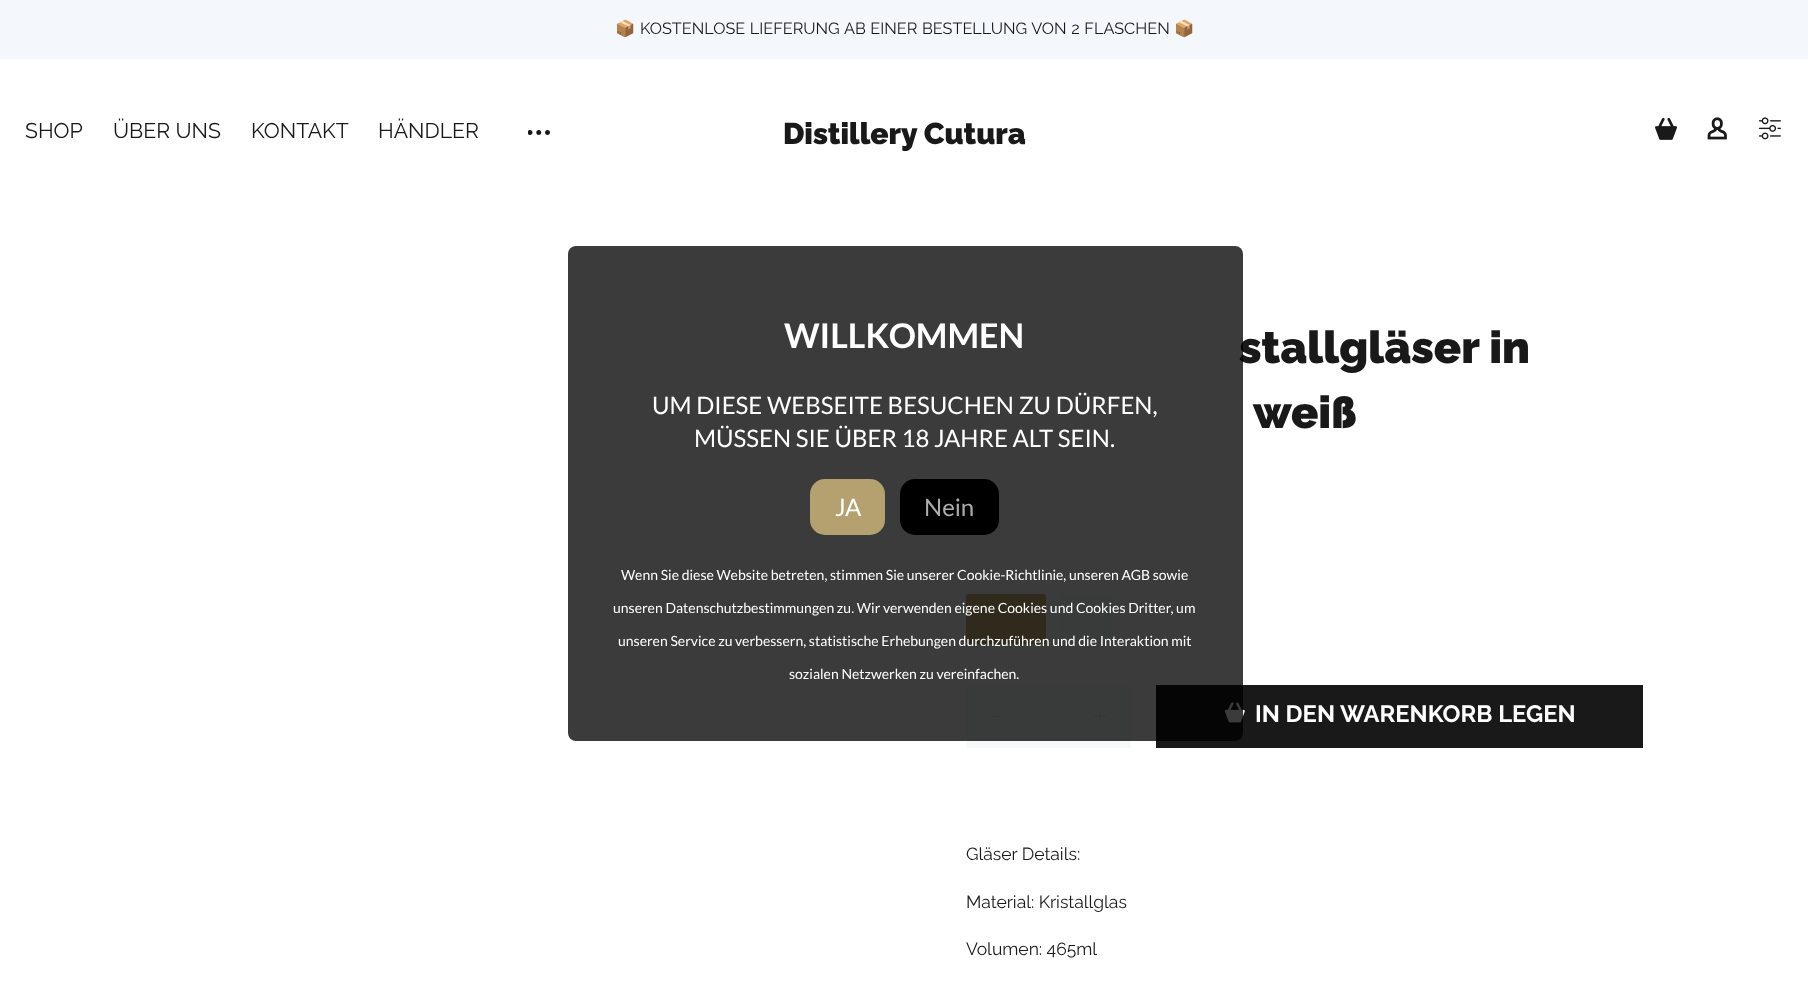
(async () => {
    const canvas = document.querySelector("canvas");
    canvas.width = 1808;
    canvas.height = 987;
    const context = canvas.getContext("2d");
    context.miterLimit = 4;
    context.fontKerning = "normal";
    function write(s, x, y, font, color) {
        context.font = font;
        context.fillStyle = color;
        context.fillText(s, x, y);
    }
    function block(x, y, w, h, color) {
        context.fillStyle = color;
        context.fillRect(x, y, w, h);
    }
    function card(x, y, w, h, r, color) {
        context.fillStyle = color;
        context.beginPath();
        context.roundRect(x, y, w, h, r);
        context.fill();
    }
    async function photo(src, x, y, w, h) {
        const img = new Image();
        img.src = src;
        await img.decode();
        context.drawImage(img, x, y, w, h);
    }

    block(0, 0, 1808, 987, "rgb(255, 255, 255)");
    block(0, 0, 1808, 59, "rgb(244, 247, 252)");
    write("📦", 615, 34, "16.25px Noto Color Emoji", "rgb(25, 25, 25)");
    context.wordSpacing = "0.5px";
    write("KOSTENLOSE LIEFERUNG AB EINER BESTELLUNG VON 2 FLASCHEN", 640, 34, "16.25px Raleway", "rgb(25, 25, 25)");
    context.wordSpacing = "0px";
    write("📦", 1174, 34, "16.25px Noto Color Emoji", "rgb(25, 25, 25)");
    write("SHOP", 25, 138, "21.25px Raleway", "rgb(25, 25, 25)");
    write("ÜBER UNS", 113, 138, "21.25px Raleway", "rgb(25, 25, 25)");
    write("KONTAKT", 251, 138, "21.25px Raleway", "rgb(25, 25, 25)");
    write("HÄNDLER", 378, 138, "21.25px Raleway", "rgb(25, 25, 25)");
    await photo("media/1.png", 528, 130, 22, 5);
    write("Distillery Cutura", 783, 144, "900 30px Raleway", "rgb(25, 25, 25)");
    await photo("media/2.png", 1655, 117, 22, 23);
    await photo("media/3.png", 1707, 117, 20, 23);
    await photo("media/4.png", 1758, 117, 23, 23);
    write("stallgläser in", 1239, 363, "900 45px Raleway", "rgb(25, 25, 25)");
    card(966, 594, 80, 50, 2.5, "rgb(207, 183, 123)");
    card(1059, 594, 54, 50, 2.5, "rgb(247, 248, 250)");
    block(966, 685, 165, 63, "rgb(247, 248, 250)");
    context.fillStyle = "rgb(216, 216, 216)";
    context.beginPath();
    context.moveTo(1002, 716);
    context.lineTo(1002, 716.5);
    context.lineTo(991, 716.5);
    context.lineTo(991, 716);
    context.closePath();
    context.fill();
    await photo("media/5.png", 1094, 710, 12, 12);
    block(1156, 685, 487, 63, "rgb(25, 25, 25)");
    await photo("media/6.png", 1224, 702, 21, 21);
    card(568, 246, 675, 495, 8, "rgba(0, 0, 0, 0.77)");
    write("WILLKOMMEN", 784, 348, "bold 34px Lato", "rgb(255, 255, 255)");
    write("UM DIESE WEBSEITE BESUCHEN ZU DÜRFEN,", 652, 414, "24px Lato", "rgb(255, 255, 255)");
    write("MÜSSEN SIE ÜBER 18 JAHRE ALT SEIN.", 694, 447, "24px Lato", "rgb(255, 255, 255)");
    card(810, 479, 75, 56, 15, "rgb(180, 161, 111)");
    write("JA", 835, 516, "24px Lato", "rgb(255, 255, 255)");
    card(900, 479, 99, 56, 15, "rgb(0, 0, 0)");
    write("Nein", 924, 516, "24px Lato", "rgb(173, 173, 173)");
    write("Wenn Sie diese Website betreten, stimmen Sie unserer Cookie-Richtlinie, unseren AGB sowie", 621, 580, "14px Lato", "rgb(255, 255, 255)");
    write("unseren Datenschutzbestimmungen zu. Wir verwenden eigene Cookies und Cookies Dritter, um", 613, 613, "14px Lato", "rgb(255, 255, 255)");
    write("unseren Service zu verbessern, statistische Erhebungen durchzuführen und die Interaktion mit", 618, 646, "14px Lato", "rgb(255, 255, 255)");
    write("sozialen Netzwerken zu vereinfachen.", 789, 679, "14px Lato", "rgb(255, 255, 255)");
    write("weiß", 1253, 428, "900 45px Raleway", "rgb(25, 25, 25)");
    write("IN DEN WARENKORB LEGEN", 1255, 722, "bold 23.75px Raleway", "rgb(255, 255, 255)");
    write("Gläser Details:", 966, 860, "17.5px Raleway", "rgb(25, 25, 25)");
    write("Material: Kristallglas", 966, 908, "17.5px Raleway", "rgb(25, 25, 25)");
    write("Volumen: 465ml", 966, 955, "17.5px Raleway", "rgb(25, 25, 25)");
})();
